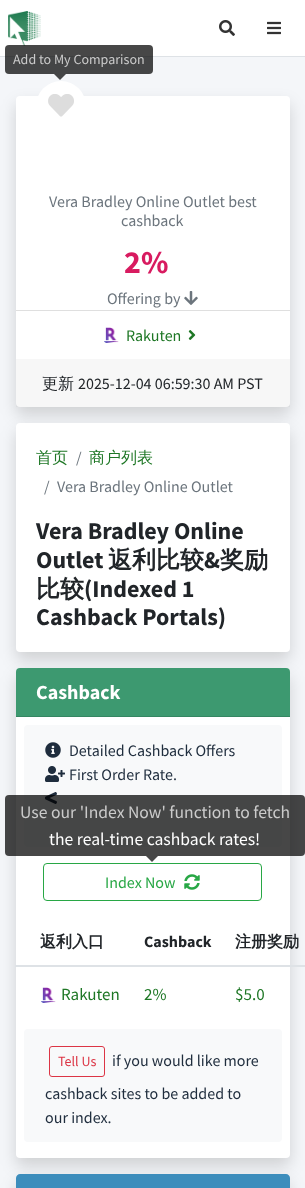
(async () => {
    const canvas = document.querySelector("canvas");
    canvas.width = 305;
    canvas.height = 1188;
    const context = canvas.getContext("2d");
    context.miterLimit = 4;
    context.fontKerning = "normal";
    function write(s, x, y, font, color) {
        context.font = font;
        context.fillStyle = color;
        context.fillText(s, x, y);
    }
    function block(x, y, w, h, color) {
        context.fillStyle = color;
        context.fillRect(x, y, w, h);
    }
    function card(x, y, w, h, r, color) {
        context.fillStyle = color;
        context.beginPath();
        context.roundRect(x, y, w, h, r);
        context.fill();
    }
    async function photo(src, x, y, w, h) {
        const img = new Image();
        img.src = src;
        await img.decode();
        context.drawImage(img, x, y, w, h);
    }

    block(0, 0, 305, 1188, "rgb(255, 255, 255)");
    block(0, 56, 305, 1, "rgb(222, 226, 230)");
    await photo("media/1.png", 8, 11, 33, 35);
    block(0, 57, 305, 1131, "rgb(244, 246, 249)");
    card(5, 45, 148, 29, 4, "rgba(0, 0, 0, 0.72)");
    write("Add to My Comparison", 13, 64, "14px Source Sans Pro", "rgb(203, 203, 203)");
    context.fillStyle = "rgba(0, 0, 0, 0.15)";
    context.filter = "blur(8px)";
    context.beginPath();
    context.roundRect(16, 104, 274, 311, 4);
    context.fill();
    context.filter = "none";
    context.fillStyle = "rgb(68, 69, 70)";
    context.beginPath();
    context.moveTo(54, 74);
    context.lineTo(66, 74);
    context.lineTo(60, 80);
    context.closePath();
    context.fill();
    await photo("media/2.png", 219, 20, 16, 16);
    await photo("media/3.png", 267, 21, 14, 14);
    card(16, 96, 274, 311, 4, "rgb(255, 255, 255)");
    context.beginPath();
    context.arc(61, 106, 25, 0, Math.PI * 2);
    context.fill();
    await photo("media/4.png", 48, 94, 26, 23);
    block(16, 310, 274, 1, "rgb(223, 223, 223)");
    write("Vera Bradley Online Outlet best", 49, 207, "16px Source Sans Pro", "rgb(108, 117, 125)");
    write("cashback", 121, 226, "16px Source Sans Pro", "rgb(108, 117, 125)");
    write("2%", 124, 273, "bold 32px Source Sans Pro", "rgb(216, 27, 96)");
    write("Offering by", 107, 304, "16px Source Sans Pro", "rgb(108, 117, 125)");
    await photo("media/5.png", 184, 291, 14, 14);
    await photo("media/6.png", 104, 327, 15, 16);
    write("Rakuten", 126, 341, "16px Source Sans Pro", "rgb(30, 119, 37)");
    await photo("media/7.png", 188, 330, 8, 10);
    block(16, 359, 274, 48, "rgba(0, 0, 0, 0.03)");
    write("更新", 42, 389, "500 16px WenQuanYi Zen Hei", "rgb(33, 37, 41)");
    write("2025-12-04 06:59:30 AM PST", 78, 389, "16px Source Sans Pro", "rgb(33, 37, 41)");
    context.fillStyle = "rgba(0, 0, 0, 0.15)";
    context.filter = "blur(8px)";
    context.beginPath();
    context.roundRect(16, 431, 274, 229, 4);
    context.fill();
    context.filter = "none";
    card(16, 423, 274, 229, 4, "rgb(255, 255, 255)");
    write("首页", 36, 463, "500 16px WenQuanYi Zen Hei", "rgb(30, 119, 37)");
    write("/", 76, 463, "16px Source Sans Pro", "rgb(108, 117, 125)");
    write("商户列表", 89, 463, "500 16px WenQuanYi Zen Hei", "rgb(30, 119, 37)");
    write("/", 44, 492, "16px Source Sans Pro", "rgb(108, 117, 125)");
    write("Vera Bradley Online Outlet", 57, 492, "16px Source Sans Pro", "rgb(108, 117, 125)");
    write("Vera Bradley Online", 36, 539, "bold 24px Source Sans Pro", "rgb(33, 37, 41)");
    write("Outlet", 36, 568, "bold 24px Source Sans Pro", "rgb(33, 37, 41)");
    write("返利比较", 108, 568, "bold 24px WenQuanYi Zen Hei", "rgb(33, 37, 41)");
    write("&", 204, 568, "bold 24px Source Sans Pro", "rgb(33, 37, 41)");
    write("奖励", 220, 568, "bold 24px WenQuanYi Zen Hei", "rgb(33, 37, 41)");
    write("比较", 36, 597, "bold 24px WenQuanYi Zen Hei", "rgb(33, 37, 41)");
    write("(Indexed 1", 84, 597, "bold 24px Source Sans Pro", "rgb(33, 37, 41)");
    write("Cashback Portals)", 36, 625, "bold 24px Source Sans Pro", "rgb(33, 37, 41)");
    context.fillStyle = "rgba(0, 0, 0, 0.15)";
    context.filter = "blur(8px)";
    context.beginPath();
    context.roundRect(16, 676, 274, 490, 4);
    context.fill();
    context.filter = "none";
    card(16, 668, 274, 490, 4, "rgb(255, 255, 255)");
    context.fillStyle = "rgb(61, 153, 112)";
    context.beginPath();
    context.roundRect(16, 668, 274, 49, [4, 4, 0, 0]);
    context.fill();
    block(16, 716, 274, 1, "rgb(53, 134, 98)");
    write("Cashback", 36, 699, "bold 20px Source Sans Pro", "rgb(255, 255, 255)");
    card(24, 725, 258, 122, 4, "rgb(248, 249, 250)");
    await photo("media/8.png", 45, 742, 16, 16);
    write("Detailed Cashback Offers", 69, 756, "16px Source Sans Pro", "rgb(31, 45, 61)");
    await photo("media/9.png", 45, 766, 20, 16);
    write("First Order Rate.", 69, 780, "16px Source Sans Pro", "rgb(31, 45, 61)");
    await photo("media/10.png", 45, 792, 12, 12);
    context.beginPath();
    context.roundRect(43.5, 863.5, 218, 37, 3.5);
    context.strokeStyle = "rgb(40, 167, 69)";
    context.stroke();
    write("Index Now", 105, 888, "16px Source Sans Pro", "rgb(40, 167, 69)");
    await photo("media/11.png", 184, 874, 16, 16);
    write("返利入口", 40, 947, "bold 16px WenQuanYi Zen Hei", "rgb(33, 37, 41)");
    write("Cashback", 144, 947, "bold 16px Source Sans Pro", "rgb(33, 37, 41)");
    block(15, 965, 290, 2, "rgb(222, 226, 230)");
    write("注册奖励", 235, 947, "bold 16px WenQuanYi Zen Hei", "rgb(33, 37, 41)");
    await photo("media/6.png", 41, 987, 15, 16);
    write("Rakuten", 61, 1000, "17px Source Sans Pro", "rgb(30, 119, 37)");
    write("2%", 144, 1000, "17px Source Sans Pro", "rgb(30, 119, 37)");
    write("$5.0", 235, 1000, "17px Source Sans Pro", "rgb(30, 119, 37)");
    card(24, 1029, 258, 113, 4, "rgb(248, 249, 250)");
    context.beginPath();
    context.roundRect(49.5, 1046.5, 55, 30, 2.5);
    context.strokeStyle = "rgb(220, 53, 69)";
    context.stroke();
    write("Tell Us", 58, 1066, "14px Source Sans Pro", "rgb(220, 53, 69)");
    write("if you would like more", 112, 1066, "16px Source Sans Pro", "rgb(31, 45, 61)");
    write("cashback sites to be added to", 45, 1099, "16px Source Sans Pro", "rgb(31, 45, 61)");
    write("our index.", 45, 1123, "16px Source Sans Pro", "rgb(31, 45, 61)");
    context.fillStyle = "rgba(0, 0, 0, 0.15)";
    context.filter = "blur(8px)";
    context.beginPath();
    context.roundRect(16, 1182, 274, 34, 4);
    context.fill();
    context.filter = "none";
    context.fillStyle = "rgb(60, 141, 188)";
    context.beginPath();
    context.moveTo(20, 1174);
    context.lineTo(286, 1174);
    context.bezierCurveTo(288, 1174, 290, 1176, 290, 1178);
    context.lineTo(290, 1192);
    context.lineTo(16, 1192);
    context.lineTo(16, 1178);
    context.bezierCurveTo(16, 1176, 18, 1174, 20, 1174);
    context.closePath();
    context.fill();
    card(5, 795, 300, 61, 4, "rgba(0, 0, 0, 0.72)");
    write("Use our 'Index Now' function to fetch", 20, 818, "17.6px Source Sans Pro", "rgb(203, 203, 203)");
    write("the real-time cashback rates!", 49, 845, "17.6px Source Sans Pro", "rgb(255, 255, 255)");
    context.fillStyle = "rgb(71, 71, 71)";
    context.beginPath();
    context.moveTo(146, 856);
    context.lineTo(158, 856);
    context.lineTo(152, 862);
    context.closePath();
    context.fill();
})();
